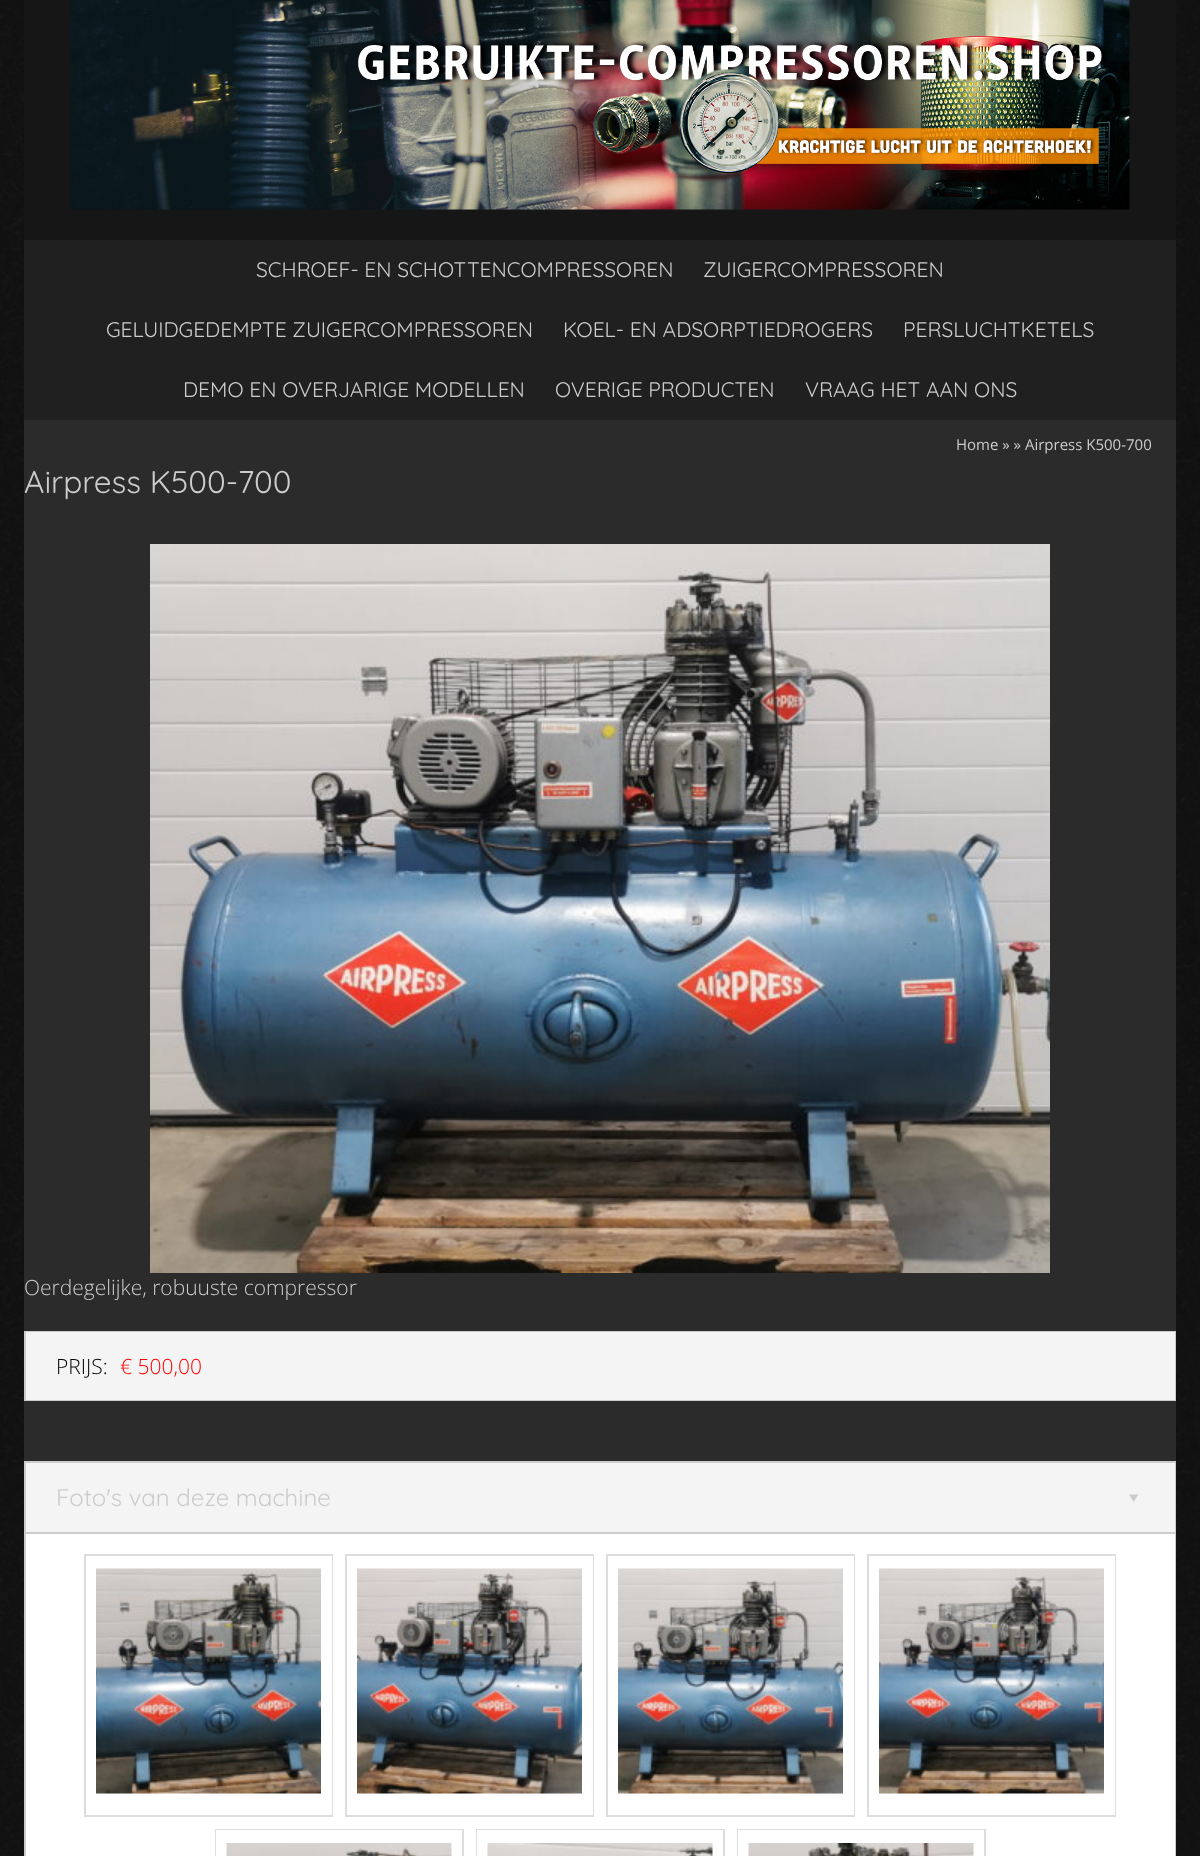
(async () => {
    const canvas = document.querySelector("canvas");
    canvas.width = 1200;
    canvas.height = 1856;
    const context = canvas.getContext("2d");
    context.miterLimit = 4;
    context.fontKerning = "normal";
    function write(s, x, y, font, color) {
        context.font = font;
        context.fillStyle = color;
        context.fillText(s, x, y);
    }
    function block(x, y, w, h, color) {
        context.fillStyle = color;
        context.fillRect(x, y, w, h);
    }
    async function photo(src, x, y, w, h) {
        const img = new Image();
        img.src = src;
        await img.decode();
        context.drawImage(img, x, y, w, h);
    }

    block(0, 0, 1200, 1856, "rgb(255, 255, 255)");
    await photo("media/1.png", 0, 0, 1200, 1856);
    block(24, 240, 1152, 180, "rgb(32, 32, 32)");
    block(24, 0, 1152, 240, "rgb(22, 22, 22)");
    await photo("media/2.png", 70, 0, 1060, 210);
    block(24, 420, 1152, 1041, "rgb(43, 43, 43)");
    write("SCHROEF- EN SCHOTTENCOMPRESSOREN", 256, 277, "21px Quicksand", "rgb(204, 204, 204)");
    write("ZUIGERCOMPRESSOREN", 703, 277, "21px Quicksand", "rgb(204, 204, 204)");
    write("GELUIDGEDEMPTE ZUIGERCOMPRESSOREN", 106, 337, "21px Quicksand", "rgb(204, 204, 204)");
    write("KOEL- EN ADSORPTIEDROGERS", 563, 337, "21px Quicksand", "rgb(204, 204, 204)");
    write("PERSLUCHTKETELS", 903, 337, "21px Quicksand", "rgb(204, 204, 204)");
    write("DEMO EN OVERJARIGE MODELLEN", 183, 397, "21px Quicksand", "rgb(204, 204, 204)");
    write("OVERIGE PRODUCTEN", 555, 397, "21px Quicksand", "rgb(204, 204, 204)");
    write("VRAAG HET AAN ONS", 805, 397, "21px Quicksand", "rgb(204, 204, 204)");
    write("Home » » Airpress K500-700", 956, 450, "15px Open Sans", "rgb(204, 204, 204)");
    write("Airpress K500-700", 24, 493, "31.5px Quicksand", "rgb(204, 204, 204)");
    await photo("media/3.png", 150, 544, 900, 729);
    block(24, 1331, 1152, 1, "rgb(204, 204, 204)");
    write("Oerdegelijke, robuuste compressor", 24, 1295, "300 21px Open Sans", "rgb(204, 204, 204)");
    block(26, 1332, 1149, 68, "rgb(244, 244, 244)");
    block(1175, 1332, 1, 69, "rgb(204, 204, 204)");
    block(24, 1400, 1152, 1, "rgb(204, 204, 204)");
    block(24, 1332, 2, 69, "rgb(204, 204, 204)");
    write("PRIJS:", 56, 1374, "300 21px Open Sans", "rgb(0, 0, 0)");
    write("€ 500,00", 120, 1374, "300 21px Open Sans", "rgb(253, 0, 2)");
    block(26, 1463, 1149, 69, "rgb(244, 244, 244)");
    block(24, 1461, 1152, 2, "rgb(204, 204, 204)");
    block(1175, 1461, 1, 71, "rgb(204, 204, 204)");
    block(24, 1461, 2, 71, "rgb(204, 204, 204)");
    write("Foto's van deze machine", 56, 1506, "24px Quicksand", "rgb(204, 204, 204)");
    context.beginPath();
    context.moveTo(1138.5, 1494.5);
    context.lineTo(1133.5, 1502);
    context.lineTo(1129, 1494.5);
    context.closePath();
    context.fill();
    block(26, 1534, 1149, 322, "rgb(255, 255, 255)");
    block(24, 1532, 1152, 2, "rgb(204, 204, 204)");
    block(1175, 1532, 1, 324, "rgb(204, 204, 204)");
    block(24, 1532, 2, 324, "rgb(204, 204, 204)");
    context.strokeStyle = "rgb(221, 221, 221)";
    context.lineWidth = 2;
    context.strokeRect(85, 1555, 247, 261);
    block(331, 1556, 1, 259, "rgb(255, 255, 255)");
    await photo("media/4.png", 96, 1568, 225, 226);
    context.strokeRect(346, 1555, 247, 261);
    block(592, 1556, 1, 259, "rgb(255, 255, 255)");
    await photo("media/5.png", 357, 1568, 225, 226);
    context.strokeRect(607, 1555, 247, 261);
    block(853, 1556, 1, 259, "rgb(255, 255, 255)");
    await photo("media/6.png", 618, 1568, 225, 226);
    context.strokeRect(868, 1555, 247, 261);
    block(1114, 1556, 1, 259, "rgb(255, 255, 255)");
    await photo("media/7.png", 879, 1568, 225, 226);
    context.strokeRect(216, 1830, 247, 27);
    block(216, 1830, 246, 26, "rgb(255, 255, 255)");
    await photo("media/8.png", 226, 1843, 226, 13);
    context.strokeRect(477, 1830, 247, 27);
    block(477, 1830, 246, 26, "rgb(255, 255, 255)");
    await photo("media/9.png", 487, 1843, 226, 13);
    context.strokeRect(738, 1830, 247, 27);
    block(738, 1830, 246, 26, "rgb(255, 255, 255)");
    await photo("media/10.png", 748, 1843, 226, 13);
})();
